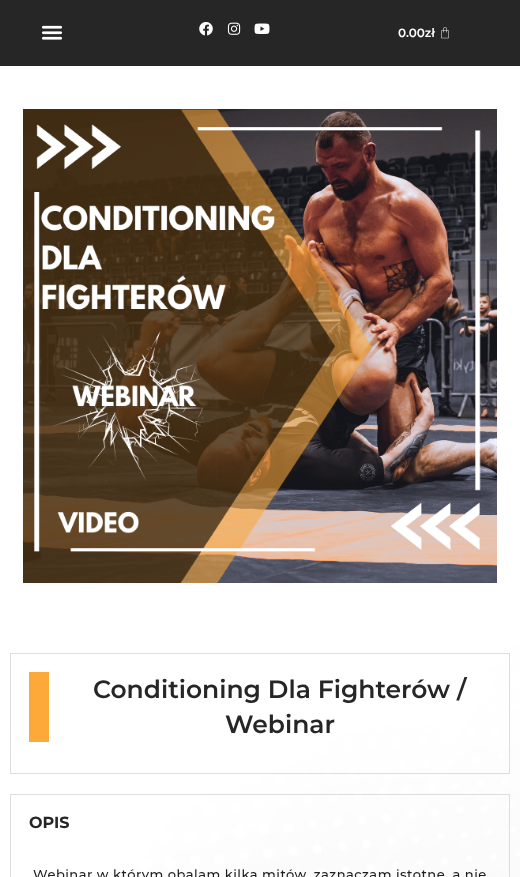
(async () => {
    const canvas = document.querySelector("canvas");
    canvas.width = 520;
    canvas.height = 877;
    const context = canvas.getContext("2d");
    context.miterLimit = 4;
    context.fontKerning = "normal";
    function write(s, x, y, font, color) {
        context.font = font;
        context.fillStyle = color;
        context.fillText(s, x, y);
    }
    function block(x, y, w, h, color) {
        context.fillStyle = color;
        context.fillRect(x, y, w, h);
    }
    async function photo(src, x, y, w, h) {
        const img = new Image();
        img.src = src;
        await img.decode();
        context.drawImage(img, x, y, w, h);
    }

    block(0, 0, 520, 877, "rgb(255, 255, 255)");
    await photo("media/1.png", 0, 66, 520, 811);
    block(0, 0, 520, 66, "rgb(38, 38, 38)");
    await photo("media/2.png", 41, 25, 22, 15);
    await photo("media/3.png", 199, 22, 14, 14);
    await photo("media/4.png", 227, 22, 14, 13);
    await photo("media/5.png", 254, 23, 16, 11);
    write("0.00zł", 398, 37, "600 12px Montserrat", "rgb(255, 255, 255)");
    await photo("media/6.png", 441, 27, 8, 12);
    await photo("media/7.png", 23, 109, 474, 474);
    context.strokeStyle = "rgb(221, 221, 221)";
    context.strokeRect(10.5, 653.5, 499, 120);
    block(29, 672, 20, 70, "rgb(252, 169, 58)");
    write("Conditioning Dla Fighterów /", 93, 698, "600 25px Montserrat", "rgb(38, 38, 38)");
    write("Webinar", 225, 733, "600 25px Montserrat", "rgb(38, 38, 38)");
    context.strokeRect(10.5, 794.5, 499, 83);
    write("OPIS", 29, 828, "bold 16px Montserrat", "rgb(38, 38, 38)");
    context.letterSpacing = "0.5px";
    write("Webinar w którym obalam kilka mitów, zaznaczam istotne, a nie", 33, 879, "500 13px Montserrat", "rgb(31, 31, 31)");
})();
